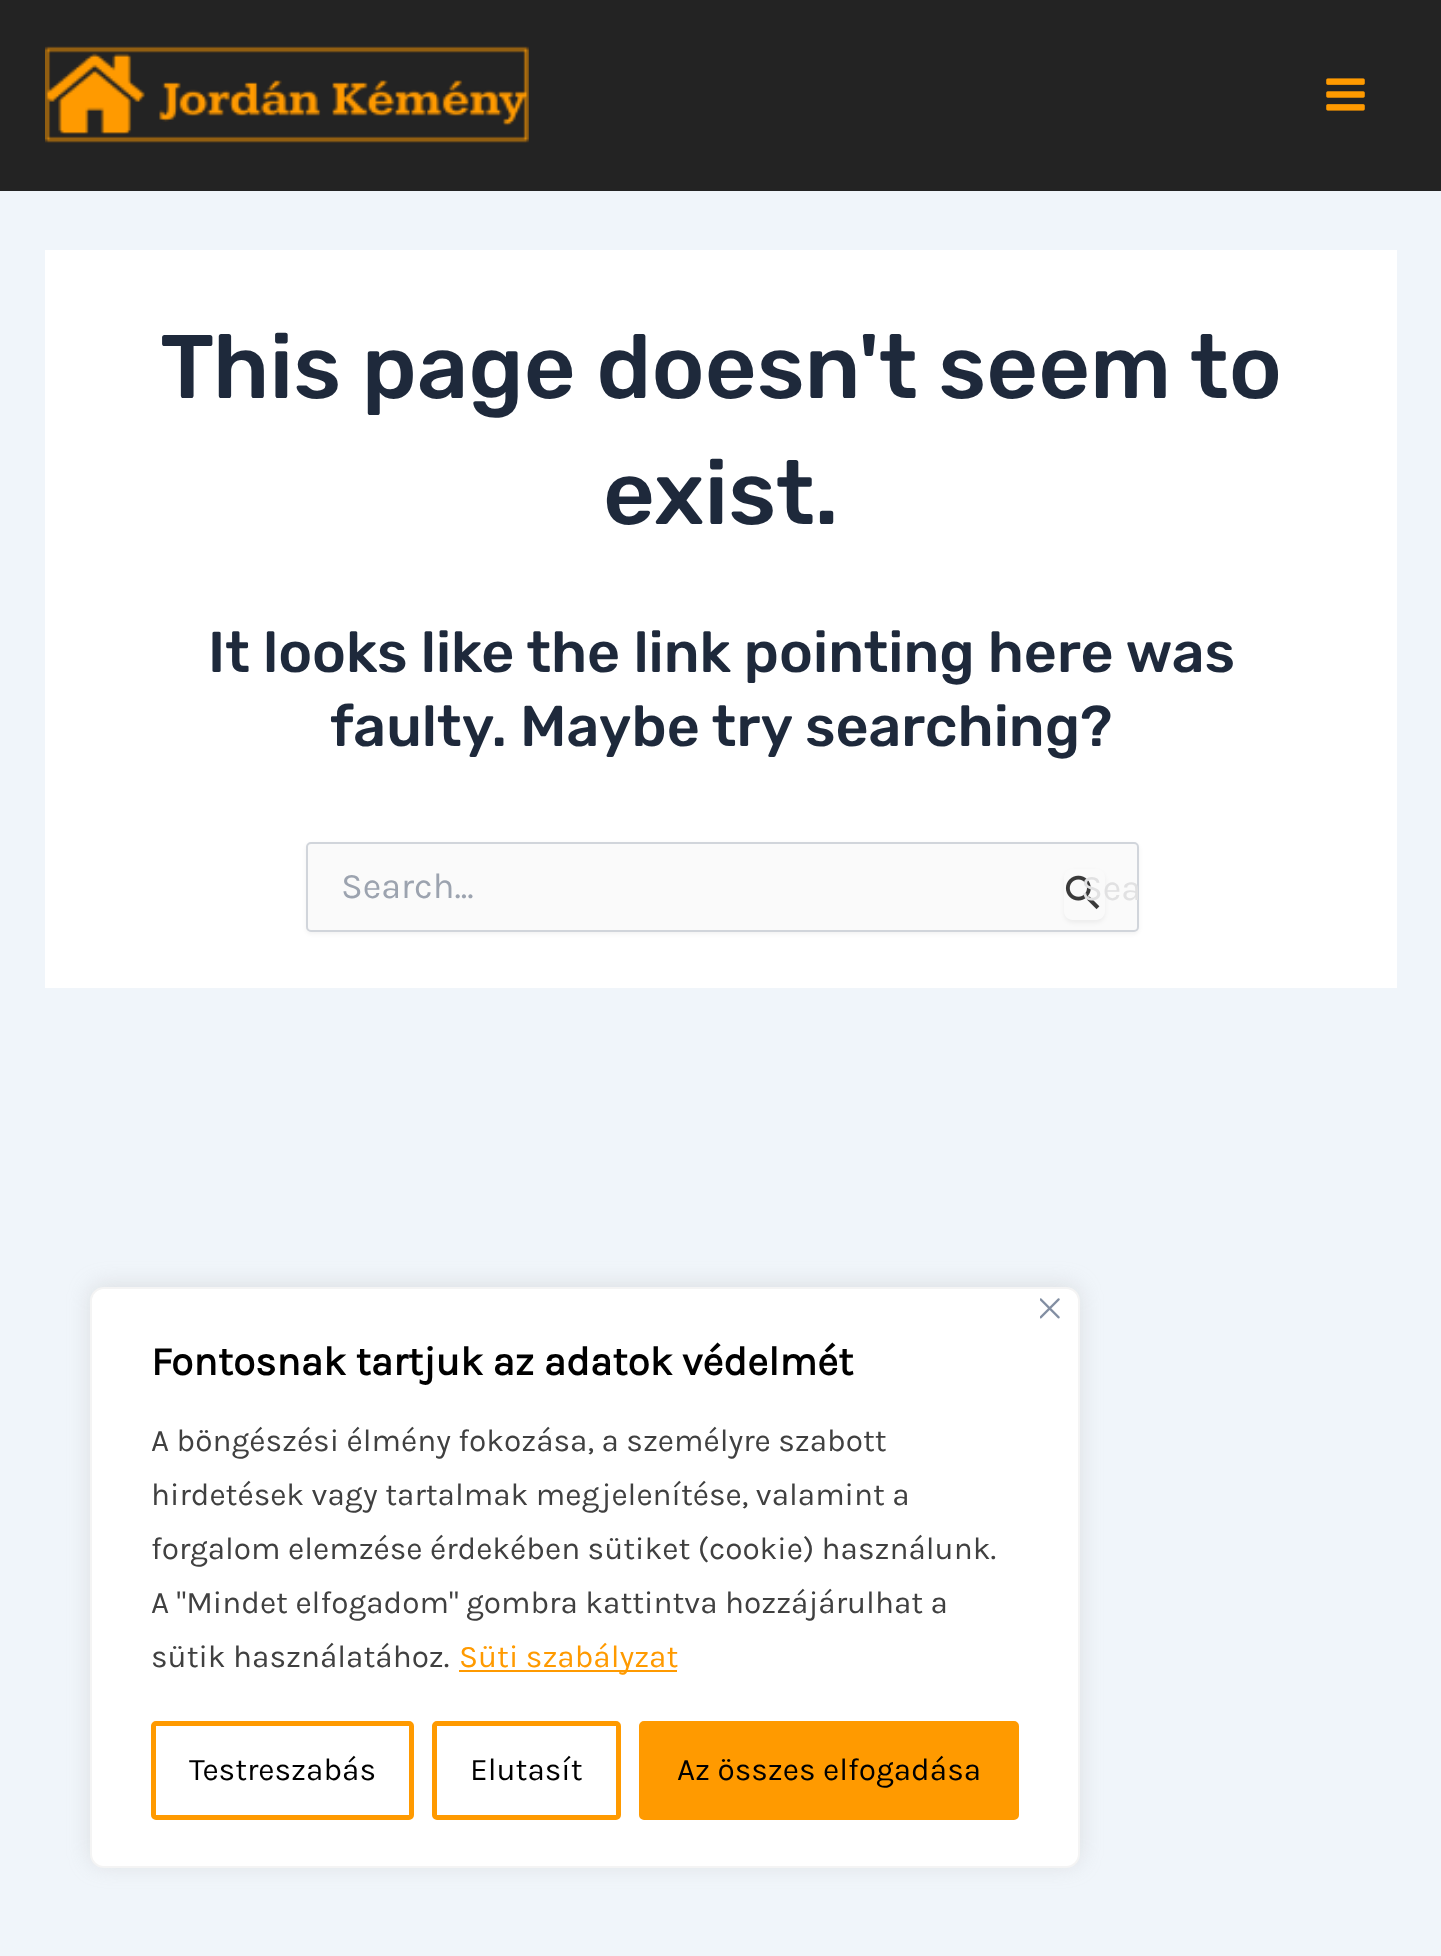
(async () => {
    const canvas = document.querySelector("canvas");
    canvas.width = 1441;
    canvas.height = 1956;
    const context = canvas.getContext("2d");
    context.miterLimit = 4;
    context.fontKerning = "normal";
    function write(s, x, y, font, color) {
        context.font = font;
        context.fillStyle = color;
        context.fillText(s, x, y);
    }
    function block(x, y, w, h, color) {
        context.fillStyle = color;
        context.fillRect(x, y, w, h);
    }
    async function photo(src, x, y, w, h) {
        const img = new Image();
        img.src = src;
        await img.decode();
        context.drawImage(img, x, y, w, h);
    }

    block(0, 0, 1441, 1956, "rgb(240, 245, 250)");
    block(0, 0, 1441, 191, "rgb(35, 35, 35)");
    await photo("media/1.png", 45, 46, 484, 97);
    await photo("media/2.png", 1326, 78, 39, 33);
    block(45, 250, 1352, 738, "rgb(255, 255, 255)");
    write("This page doesn't seem to", 160, 398, "500 90px Rubik", "rgb(30, 41, 59)");
    write("exist.", 603, 524, "500 90px Rubik", "rgb(30, 41, 59)");
    write("It looks like the link pointing here was", 208, 672, "500 57.4px Rubik", "rgb(30, 41, 59)");
    write("faulty. Maybe try searching?", 330, 746, "500 57.4px Rubik", "rgb(30, 41, 59)");
    context.fillStyle = "rgba(0, 0, 0, 0.05)";
    context.filter = "blur(2px)";
    context.beginPath();
    context.roundRect(306, 844, 833, 90, 5);
    context.fill();
    context.filter = "none";
    context.fillStyle = "rgb(250, 250, 250)";
    context.beginPath();
    context.roundRect(307, 843, 831, 88, 4);
    context.fill();
    context.strokeStyle = "rgb(209, 213, 219)";
    context.lineWidth = 2;
    context.stroke();
    write("Search...", 341, 898, "36px Karla", "rgb(156, 163, 175)");
    context.save();
    context.beginPath();
    context.moveTo(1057, 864);
    context.lineTo(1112, 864);
    context.lineTo(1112, 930);
    context.lineTo(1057, 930);
    context.closePath();
    context.moveTo(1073, 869);
    context.lineTo(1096, 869);
    context.bezierCurveTo(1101, 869, 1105, 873, 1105, 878);
    context.lineTo(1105, 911);
    context.bezierCurveTo(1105, 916, 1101, 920, 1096, 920);
    context.lineTo(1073, 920);
    context.bezierCurveTo(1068, 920, 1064, 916, 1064, 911);
    context.lineTo(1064, 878);
    context.bezierCurveTo(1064, 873, 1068, 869, 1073, 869);
    context.closePath();
    context.clip("evenodd");
    context.fillStyle = "rgba(0, 0, 0, 0.05)";
    context.filter = "blur(2px)";
    context.beginPath();
    context.roundRect(1064, 871, 41, 52, 9);
    context.fill();
    context.filter = "none";
    context.restore();
    await photo("media/3.png", 1065, 875, 35, 35);
    write("Sea", 1081, 900, "36px Karla", "rgb(225, 225, 226)");
    context.fillStyle = "rgba(172, 171, 171, 0.3)";
    context.filter = "blur(11px)";
    context.beginPath();
    context.roundRect(90, 1285, 990, 580, 14);
    context.fill();
    context.filter = "none";
    context.fillStyle = "rgb(255, 255, 255)";
    context.beginPath();
    context.roundRect(91, 1288, 988, 579, 13);
    context.fill();
    context.strokeStyle = "rgb(244, 244, 244)";
    context.stroke();
    await photo("media/4.png", 1040, 1298, 20, 21);
    write("Fontosnak tartjuk az adatok védelmét", 151, 1375, "bold 40.5px Karla", "rgb(0, 0, 0)");
    write("A böngészési élmény fokozása, a személyre szabott", 151, 1451, "31.5px Karla", "rgb(64, 64, 64)");
    write("hirdetések vagy tartalmak megjelenítése, valamint a", 151, 1505, "31.5px Karla", "rgb(64, 64, 64)");
    write("forgalom elemzése érdekében sütiket (cookie) használunk.", 151, 1559, "31.5px Karla", "rgb(64, 64, 64)");
    write("A \"Mindet elfogadom\" gombra kattintva hozzájárulhat a", 151, 1613, "31.5px Karla", "rgb(64, 64, 64)");
    write("sütik használatához.", 151, 1667, "31.5px Karla", "rgb(64, 64, 64)");
    block(459, 1670, 218, 2, "rgb(255, 154, 0)");
    write("Süti szabályzat", 459, 1667, "31.5px Karla", "rgb(255, 154, 0)");
    context.beginPath();
    context.roundRect(153.5, 1723.5, 258, 94, 2.5);
    context.strokeStyle = "rgb(255, 154, 0)";
    context.lineWidth = 5;
    context.stroke();
    write("Testreszabás", 189, 1780, "31.5px Karla", "rgb(0, 0, 0)");
    context.beginPath();
    context.roundRect(434.5, 1723.5, 184, 94, 2.5);
    context.stroke();
    write("Elutasít", 470, 1780, "31.5px Karla", "rgb(0, 0, 0)");
    context.fillStyle = "rgb(255, 154, 0)";
    context.beginPath();
    context.roundRect(641.5, 1723.5, 375, 94, 2.5);
    context.fill();
    context.stroke();
    write("Az összes elfogadása", 677, 1780, "31.5px Karla", "rgb(0, 0, 0)");
})();
